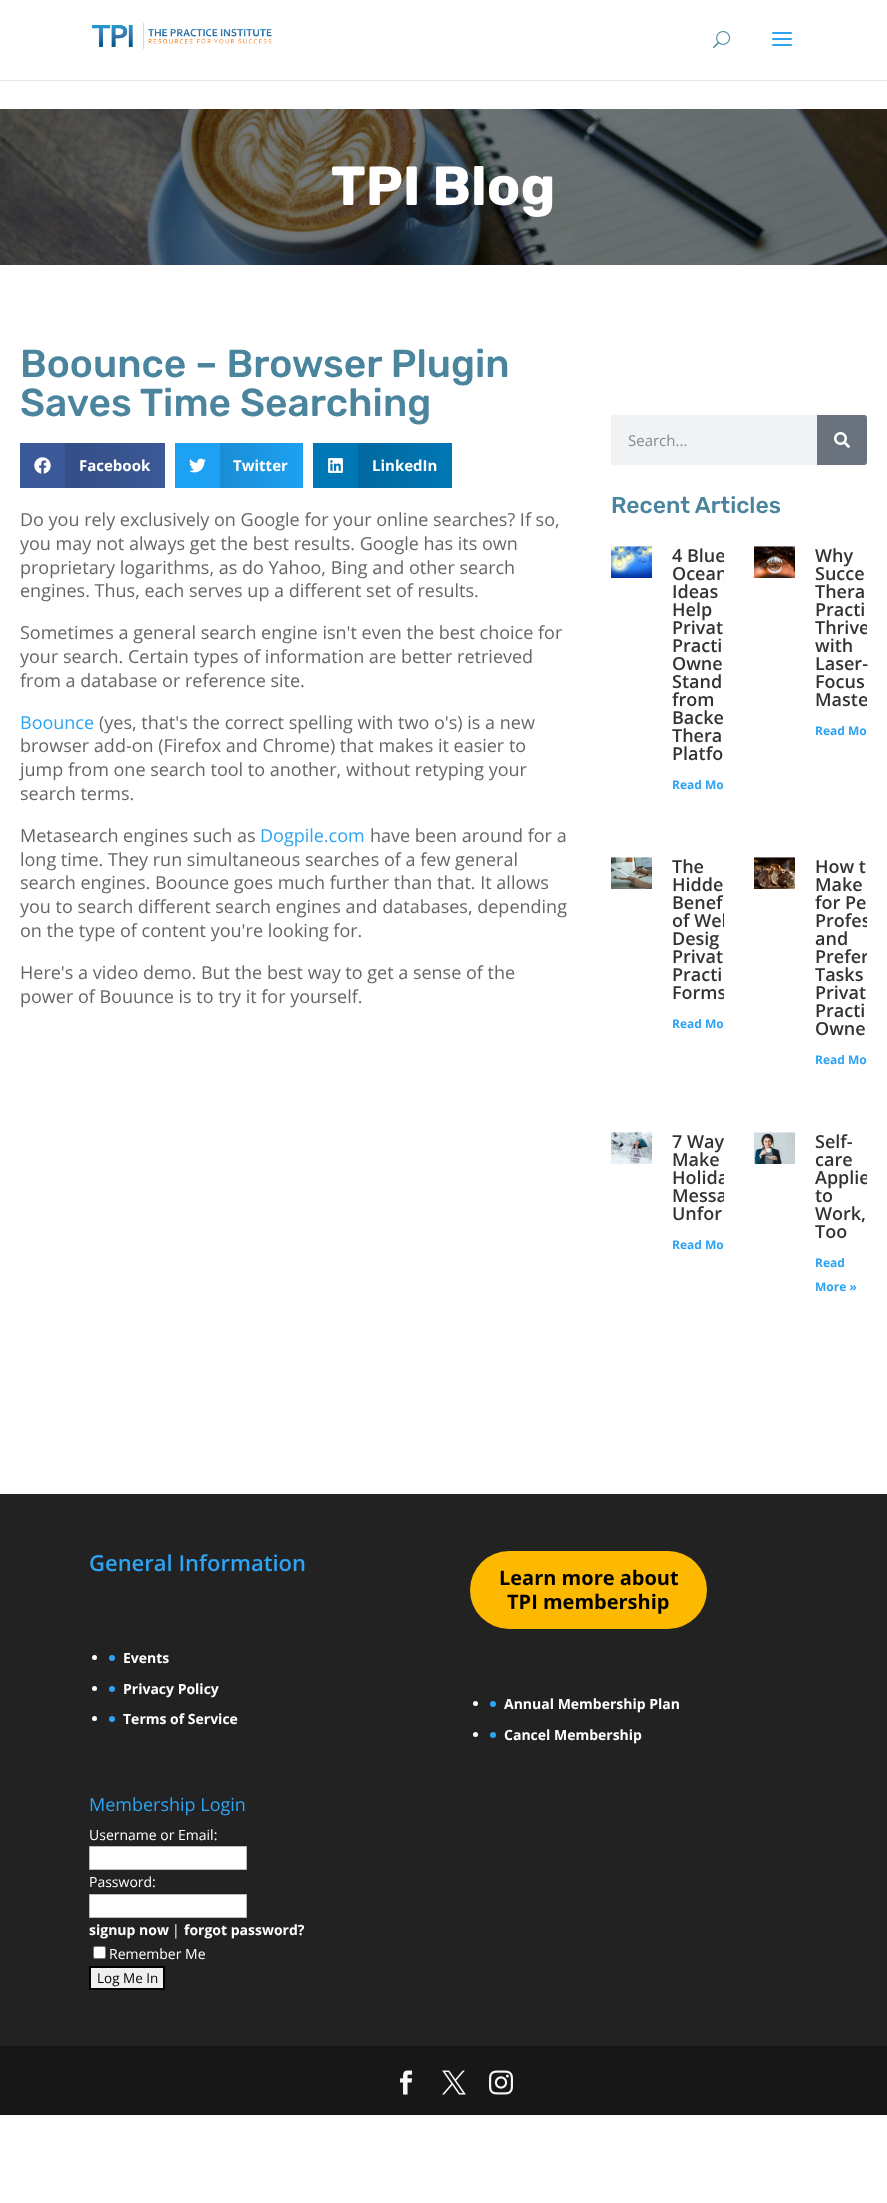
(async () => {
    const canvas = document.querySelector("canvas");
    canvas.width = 887;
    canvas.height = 2203;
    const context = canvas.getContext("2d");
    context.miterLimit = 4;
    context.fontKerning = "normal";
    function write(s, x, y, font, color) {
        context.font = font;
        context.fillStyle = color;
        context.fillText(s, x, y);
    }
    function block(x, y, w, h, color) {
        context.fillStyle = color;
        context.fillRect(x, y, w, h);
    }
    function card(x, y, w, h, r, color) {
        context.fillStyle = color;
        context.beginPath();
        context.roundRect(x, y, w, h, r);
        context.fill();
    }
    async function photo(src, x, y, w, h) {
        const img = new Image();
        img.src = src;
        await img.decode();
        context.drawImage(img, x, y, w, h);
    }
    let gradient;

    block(0, 0, 887, 2203, "rgb(255, 255, 255)");
    block(0, 80, 887, 1, "rgb(230, 230, 230)");
    await photo("media/1.png", 92, 23, 180, 26);
    await photo("media/2.png", 713, 31, 17, 18);
    await photo("media/3.png", 772, 32, 20, 14);
    await photo("media/4.png", 0, 109, 887, 156);
    write("TPI Blog", 331, 205, "bold 55px Rubik", "rgb(255, 255, 255)");
    write("Boounce – Browser Plugin", 20, 377, "500 39px Rubik", "rgb(74, 133, 157)");
    write("Saves Time Searching", 20, 416, "500 39px Rubik", "rgb(74, 133, 157)");
    block(20, 443, 45, 45, "rgb(59, 89, 152)");
    await photo("media/5.png", 34, 457, 17, 17);
    gradient = context.createLinearGradient(65, 466, 165, 466);
    gradient.addColorStop(0, "rgb(52, 78, 134)");
    gradient.addColorStop(1, "rgb(59, 89, 152)");
    context.fillStyle = gradient;
    context.fillRect(65, 443, 100, 45);
    write("Facebook", 79, 471, "bold 15px Open Sans", "rgb(255, 255, 255)");
    block(175, 443, 45, 45, "rgb(29, 161, 242)");
    await photo("media/6.png", 189, 458, 17, 15);
    gradient = context.createLinearGradient(220, 466, 303, 466);
    gradient.addColorStop(0, "rgb(26, 142, 213)");
    gradient.addColorStop(1, "rgb(29, 161, 242)");
    context.fillStyle = gradient;
    context.fillRect(220, 443, 83, 45);
    write("Twitter", 233, 471, "bold 15px Open Sans", "rgb(255, 255, 255)");
    block(313, 443, 45, 45, "rgb(0, 119, 181)");
    await photo("media/7.png", 328, 458, 15, 15);
    gradient = context.createLinearGradient(358, 466, 452, 466);
    gradient.addColorStop(0, "rgb(0, 105, 159)");
    gradient.addColorStop(1, "rgb(0, 119, 181)");
    context.fillStyle = gradient;
    context.fillRect(358, 443, 94, 45);
    write("LinkedIn", 372, 471, "bold 15px Open Sans", "rgb(255, 255, 255)");
    write("Do you rely exclusively on Google for your online searches? If so,", 20, 526, "18px Open Sans", "rgb(102, 102, 102)");
    write("you may not always get the best results. Google has its own", 20, 550, "18px Open Sans", "rgb(102, 102, 102)");
    write("proprietary logarithms, as do Yahoo, Bing and other search", 20, 574, "18px Open Sans", "rgb(102, 102, 102)");
    write("engines. Thus, each serves up a different set of results.", 20, 597, "18px Open Sans", "rgb(102, 102, 102)");
    write("Sometimes a general search engine isn't even the best choice for", 20, 639, "18px Open Sans", "rgb(102, 102, 102)");
    write("your search. Certain types of information are better retrieved", 20, 663, "18px Open Sans", "rgb(102, 102, 102)");
    write("from a database or reference site.", 20, 687, "18px Open Sans", "rgb(102, 102, 102)");
    write("Boounce", 20, 729, "18px Open Sans", "rgb(46, 163, 242)");
    write("(yes, that's the correct spelling with two o's) is a new", 99, 729, "18px Open Sans", "rgb(102, 102, 102)");
    write("browser add-on (Firefox and Chrome) that makes it easier to", 20, 752, "18px Open Sans", "rgb(102, 102, 102)");
    write("jump from one search tool to another, without retyping your", 20, 776, "18px Open Sans", "rgb(102, 102, 102)");
    write("search terms.", 20, 800, "18px Open Sans", "rgb(102, 102, 102)");
    write("Metasearch engines such as", 20, 842, "18px Open Sans", "rgb(102, 102, 102)");
    write("Dogpile.com", 260, 842, "18px Open Sans", "rgb(46, 163, 242)");
    write("have been around for a", 370, 842, "18px Open Sans", "rgb(102, 102, 102)");
    write("long time. They run simultaneous searches of a few general", 20, 866, "18px Open Sans", "rgb(102, 102, 102)");
    write("search engines. Boounce goes much further than that. It allows", 20, 889, "18px Open Sans", "rgb(102, 102, 102)");
    write("you to search different search engines and databases, depending", 20, 913, "18px Open Sans", "rgb(102, 102, 102)");
    write("on the type of content you're looking for.", 20, 937, "18px Open Sans", "rgb(102, 102, 102)");
    write("Here's a video demo. But the best way to get a sense of the", 20, 979, "18px Open Sans", "rgb(102, 102, 102)");
    write("power of Bouunce is to try it for yourself.", 20, 1003, "18px Open Sans", "rgb(102, 102, 102)");
    card(611, 415, 256, 50, 3, "rgb(241, 242, 243)");
    write("Search...", 628, 446, "15px Open Sans", "rgb(134, 138, 142)");
    context.fillStyle = "rgb(105, 114, 125)";
    context.beginPath();
    context.roundRect(817, 415, 50, 50, [0, 3, 3, 0]);
    context.fill();
    await photo("media/8.png", 834, 432, 16, 16);
    write("Recent Articles", 611, 513, "500 23px Rubik", "rgb(74, 133, 157)");
    await photo("media/9.png", 611, 546, 41, 32);
    context.save();
    context.beginPath();
    context.rect(611, 546, 113, 276);
    context.clip();
    write("4 Blue", 672, 562, "600 18px Open Sans", "rgb(51, 51, 51)");
    write("Ocean", 672, 580, "600 18px Open Sans", "rgb(51, 51, 51)");
    context.restore();
    write("Ideas", 672, 598, "600 18px Open Sans", "rgb(51, 51, 51)");
    write("Help", 672, 616, "600 18px Open Sans", "rgb(51, 51, 51)");
    write("Privat", 672, 634, "600 18px Open Sans", "rgb(51, 51, 51)");
    write("Practi", 672, 652, "600 18px Open Sans", "rgb(51, 51, 51)");
    write("Owne", 672, 670, "600 18px Open Sans", "rgb(51, 51, 51)");
    write("Stand", 672, 688, "600 18px Open Sans", "rgb(51, 51, 51)");
    write("from", 672, 706, "600 18px Open Sans", "rgb(51, 51, 51)");
    write("Backe", 672, 724, "600 18px Open Sans", "rgb(51, 51, 51)");
    write("Thera", 672, 742, "600 18px Open Sans", "rgb(51, 51, 51)");
    write("Platfo", 672, 760, "600 18px Open Sans", "rgb(51, 51, 51)");
    write("Read Mo", 672, 789, "bold 12px Open Sans", "rgb(46, 163, 242)");
    await photo("media/10.png", 754, 546, 41, 32);
    write("Why", 815, 562, "600 18px Open Sans", "rgb(51, 51, 51)");
    write("Succe", 815, 580, "600 18px Open Sans", "rgb(51, 51, 51)");
    write("Thera", 815, 598, "600 18px Open Sans", "rgb(51, 51, 51)");
    write("Practi", 815, 616, "600 18px Open Sans", "rgb(51, 51, 51)");
    context.save();
    context.beginPath();
    context.rect(754, 546, 113, 276);
    context.clip();
    write("Thrive", 815, 634, "600 18px Open Sans", "rgb(51, 51, 51)");
    context.restore();
    write("with", 815, 652, "600 18px Open Sans", "rgb(51, 51, 51)");
    write("Laser-", 815, 670, "600 18px Open Sans", "rgb(51, 51, 51)");
    write("Focus", 815, 688, "600 18px Open Sans", "rgb(51, 51, 51)");
    context.save();
    context.beginPath();
    context.rect(754, 546, 113, 276);
    context.clip();
    write("Maste", 815, 706, "600 18px Open Sans", "rgb(51, 51, 51)");
    context.restore();
    write("Read Mo", 815, 735, "bold 12px Open Sans", "rgb(46, 163, 242)");
    await photo("media/11.png", 611, 857, 41, 32);
    write("The", 672, 873, "600 18px Open Sans", "rgb(51, 51, 51)");
    write("Hidde", 672, 891, "600 18px Open Sans", "rgb(51, 51, 51)");
    write("Benef", 672, 909, "600 18px Open Sans", "rgb(51, 51, 51)");
    context.save();
    context.beginPath();
    context.rect(611, 857, 113, 240);
    context.clip();
    write("of Wel", 672, 927, "600 18px Open Sans", "rgb(51, 51, 51)");
    context.restore();
    write("Desig", 672, 945, "600 18px Open Sans", "rgb(51, 51, 51)");
    write("Privat", 672, 963, "600 18px Open Sans", "rgb(51, 51, 51)");
    write("Practi", 672, 981, "600 18px Open Sans", "rgb(51, 51, 51)");
    context.save();
    context.beginPath();
    context.rect(611, 857, 113, 240);
    context.clip();
    write("Forms", 672, 999, "600 18px Open Sans", "rgb(51, 51, 51)");
    context.restore();
    write("Read Mo", 672, 1028, "bold 12px Open Sans", "rgb(46, 163, 242)");
    await photo("media/12.png", 754, 857, 41, 32);
    write("How t", 815, 873, "600 18px Open Sans", "rgb(51, 51, 51)");
    write("Make", 815, 891, "600 18px Open Sans", "rgb(51, 51, 51)");
    write("for Pe", 815, 909, "600 18px Open Sans", "rgb(51, 51, 51)");
    context.save();
    context.beginPath();
    context.rect(754, 857, 113, 240);
    context.clip();
    write("Profes", 815, 927, "600 18px Open Sans", "rgb(51, 51, 51)");
    context.restore();
    write("and", 815, 945, "600 18px Open Sans", "rgb(51, 51, 51)");
    context.save();
    context.beginPath();
    context.rect(754, 857, 113, 240);
    context.clip();
    write("Prefer", 815, 963, "600 18px Open Sans", "rgb(51, 51, 51)");
    context.restore();
    write("Tasks", 815, 981, "600 18px Open Sans", "rgb(51, 51, 51)");
    write("Privat", 815, 999, "600 18px Open Sans", "rgb(51, 51, 51)");
    write("Practi", 815, 1017, "600 18px Open Sans", "rgb(51, 51, 51)");
    write("Owne", 815, 1035, "600 18px Open Sans", "rgb(51, 51, 51)");
    write("Read Mo", 815, 1064, "bold 12px Open Sans", "rgb(46, 163, 242)");
    await photo("media/13.png", 611, 1132, 41, 32);
    write("7 Way", 672, 1148, "600 18px Open Sans", "rgb(51, 51, 51)");
    write("Make", 672, 1166, "600 18px Open Sans", "rgb(51, 51, 51)");
    context.save();
    context.beginPath();
    context.rect(611, 1132, 113, 192);
    context.clip();
    write("Holida", 672, 1184, "600 18px Open Sans", "rgb(51, 51, 51)");
    write("Messa", 672, 1202, "600 18px Open Sans", "rgb(51, 51, 51)");
    context.restore();
    write("Unfor", 672, 1220, "600 18px Open Sans", "rgb(51, 51, 51)");
    write("Read Mo", 672, 1249, "bold 12px Open Sans", "rgb(46, 163, 242)");
    await photo("media/14.png", 754, 1132, 41, 32);
    write("Self-", 815, 1148, "600 18px Open Sans", "rgb(51, 51, 51)");
    write("care", 815, 1166, "600 18px Open Sans", "rgb(51, 51, 51)");
    context.save();
    context.beginPath();
    context.rect(754, 1132, 113, 192);
    context.clip();
    write("Applie", 815, 1184, "600 18px Open Sans", "rgb(51, 51, 51)");
    context.restore();
    write("to", 815, 1202, "600 18px Open Sans", "rgb(51, 51, 51)");
    write("Work,", 815, 1220, "600 18px Open Sans", "rgb(51, 51, 51)");
    write("Too", 815, 1238, "600 18px Open Sans", "rgb(51, 51, 51)");
    write("Read", 815, 1267, "bold 12px Open Sans", "rgb(46, 163, 242)");
    write("More »", 815, 1291, "bold 12px Open Sans", "rgb(46, 163, 242)");
    block(0, 1494, 887, 552, "rgb(34, 34, 34)");
    write("General Information", 89, 1571, "600 22px Open Sans", "rgb(46, 163, 242)");
    context.fillStyle = "rgb(255, 255, 255)";
    context.beginPath();
    context.arc(94.5, 1657.5, 2.5, 0, Math.PI * 2);
    context.fill();
    context.fillStyle = "rgb(46, 163, 242)";
    context.beginPath();
    context.arc(112, 1658, 3, 0, Math.PI * 2);
    context.fill();
    write("Events", 123, 1663, "bold 14px Open Sans", "rgb(255, 255, 255)");
    context.beginPath();
    context.arc(94.5, 1688.5, 2.5, 0, Math.PI * 2);
    context.fill();
    context.fillStyle = "rgb(46, 163, 242)";
    context.beginPath();
    context.arc(112, 1689, 3, 0, Math.PI * 2);
    context.fill();
    write("Privacy Policy", 123, 1694, "bold 14px Open Sans", "rgb(255, 255, 255)");
    context.beginPath();
    context.arc(94.5, 1718.5, 2.5, 0, Math.PI * 2);
    context.fill();
    context.fillStyle = "rgb(46, 163, 242)";
    context.beginPath();
    context.arc(112, 1719, 3, 0, Math.PI * 2);
    context.fill();
    write("Terms of Service", 123, 1724, "bold 14px Open Sans", "rgb(255, 255, 255)");
    card(470, 1551, 237, 78, 39, "rgb(252, 185, 0)");
    write("Learn more about", 499, 1585, "bold 20px Open Sans", "rgb(0, 0, 0)");
    write("TPI membership", 507, 1609, "bold 20px Open Sans", "rgb(0, 0, 0)");
    context.fillStyle = "rgb(255, 255, 255)";
    context.beginPath();
    context.arc(475.5, 1703.5, 2.5, 0, Math.PI * 2);
    context.fill();
    context.fillStyle = "rgb(46, 163, 242)";
    context.beginPath();
    context.arc(493, 1704, 3, 0, Math.PI * 2);
    context.fill();
    write("Annual Membership Plan", 504, 1709, "bold 14px Open Sans", "rgb(255, 255, 255)");
    context.beginPath();
    context.arc(475.5, 1734.5, 2.5, 0, Math.PI * 2);
    context.fill();
    context.fillStyle = "rgb(46, 163, 242)";
    context.beginPath();
    context.arc(493, 1735, 3, 0, Math.PI * 2);
    context.fill();
    write("Cancel Membership", 504, 1740, "bold 14px Open Sans", "rgb(255, 255, 255)");
    write("Membership Login", 89, 1811, "18px Open Sans", "rgb(46, 163, 242)");
    write("Username or Email:", 89, 1840, "14px Open Sans", "rgb(255, 255, 255)");
    context.beginPath();
    context.rect(89.5, 1846.5, 157, 23);
    context.fill();
    context.strokeStyle = "rgb(187, 187, 187)";
    context.stroke();
    write("Password:", 89, 1887, "14px Open Sans", "rgb(255, 255, 255)");
    context.beginPath();
    context.rect(89.5, 1894.5, 157, 23);
    context.fill();
    context.stroke();
    write("signup now", 89, 1935, "bold 14px Open Sans", "rgb(255, 255, 255)");
    write("|", 172, 1935, "14px Open Sans", "rgb(255, 255, 255)");
    write("forgot password?", 184, 1935, "bold 14px Open Sans", "rgb(255, 255, 255)");
    context.beginPath();
    context.roundRect(93.5, 1946.5, 12, 12, 1.5);
    context.fill();
    context.strokeStyle = "rgb(118, 118, 118)";
    context.stroke();
    write("Remember Me", 109, 1959, "14px Open Sans", "rgb(255, 255, 255)");
    context.fillStyle = "rgb(239, 239, 239)";
    context.beginPath();
    context.rect(90, 1967, 74, 22);
    context.fill();
    context.strokeStyle = "rgb(0, 0, 0)";
    context.lineWidth = 2;
    context.stroke();
    write("Log Me In", 97, 1983, "13.5px Open Sans", "rgb(0, 0, 0)");
    block(0, 2046, 887, 69, "rgb(23, 23, 23)");
    await photo("media/15.png", 400, 2070, 13, 25);
    await photo("media/16.png", 442, 2070, 24, 25);
    await photo("media/17.png", 489, 2070, 24, 25);
})();
